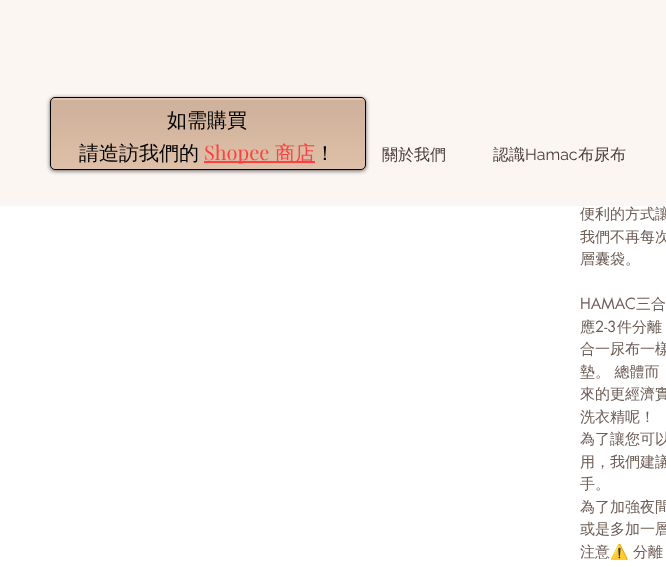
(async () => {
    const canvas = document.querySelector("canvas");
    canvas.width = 666;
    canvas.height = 567;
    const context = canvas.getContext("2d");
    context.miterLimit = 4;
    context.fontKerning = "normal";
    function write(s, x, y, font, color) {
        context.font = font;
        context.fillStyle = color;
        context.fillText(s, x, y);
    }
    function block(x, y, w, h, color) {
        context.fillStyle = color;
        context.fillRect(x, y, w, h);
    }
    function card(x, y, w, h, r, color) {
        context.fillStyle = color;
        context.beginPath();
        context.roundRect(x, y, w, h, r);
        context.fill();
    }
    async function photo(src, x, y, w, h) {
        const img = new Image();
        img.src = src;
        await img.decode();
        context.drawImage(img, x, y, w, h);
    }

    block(0, 0, 666, 567, "rgb(255, 255, 255)");
    block(0, 0, 666, 206, "rgb(252, 246, 242)");
    context.fillStyle = "rgba(0, 0, 0, 0.6)";
    context.filter = "blur(2px)";
    context.beginPath();
    context.roundRect(50, 98, 316, 73, 5);
    context.fill();
    context.filter = "none";
    card(50, 97, 316, 73, 5, "rgb(228, 196, 172)");
    await photo("media/1.png", 50, 100, 316, 69);
    context.beginPath();
    context.roundRect(50.5, 97.5, 315, 72, 4.5);
    context.strokeStyle = "rgb(0, 0, 0)";
    context.stroke();
    write("如需購買", 167, 127, "500 20px WenQuanYi Zen Hei", "rgb(0, 0, 0)");
    write("請造訪我們的", 79, 160, "500 20px WenQuanYi Zen Hei", "rgb(0, 0, 0)");
    block(204, 161, 111, 2, "rgb(255, 64, 64)");
    write("Shopee", 204, 160, "20px Playfair Display", "rgb(255, 64, 64)");
    write("商店", 275, 160, "500 20px WenQuanYi Zen Hei", "rgb(255, 64, 64)");
    write("！", 315, 160, "500 20px WenQuanYi Zen Hei", "rgb(0, 0, 0)");
    write("關於我們", 382, 160, "500 16px WenQuanYi Zen Hei", "rgb(72, 61, 56)");
    write("認識", 493, 160, "500 16px WenQuanYi Zen Hei", "rgb(72, 61, 56)");
    write("Hamac", 525, 160, "16px Raleway", "rgb(72, 61, 56)");
    write("布尿布", 578, 160, "500 16px WenQuanYi Zen Hei", "rgb(72, 61, 56)");
    write("便利的方式讓", 580, 219, "500 15px WenQuanYi Zen Hei", "rgb(108, 92, 84)");
    write("我們不再每次", 580, 242, "500 15px WenQuanYi Zen Hei", "rgb(108, 92, 84)");
    write("層囊袋。", 580, 264, "500 15px WenQuanYi Zen Hei", "rgb(108, 92, 84)");
    write("HAMAC", 580, 309, "15px futura", "rgb(108, 92, 84)");
    write("三合", 636, 309, "500 15px WenQuanYi Zen Hei", "rgb(108, 92, 84)");
    write("應", 580, 332, "500 15px WenQuanYi Zen Hei", "rgb(108, 92, 84)");
    write("2-3", 595, 332, "15px futura", "rgb(108, 92, 84)");
    write("件分離", 617, 332, "500 15px WenQuanYi Zen Hei", "rgb(108, 92, 84)");
    write("合一尿布一樣", 580, 354, "500 15px WenQuanYi Zen Hei", "rgb(108, 92, 84)");
    write("墊。 總體而", 580, 377, "500 15px WenQuanYi Zen Hei", "rgb(108, 92, 84)");
    write("來的更經濟實", 580, 399, "500 15px WenQuanYi Zen Hei", "rgb(108, 92, 84)");
    write("洗衣精呢！", 580, 422, "500 15px WenQuanYi Zen Hei", "rgb(108, 92, 84)");
    write("為了讓您可以", 580, 444, "500 15px WenQuanYi Zen Hei", "rgb(108, 92, 84)");
    write("用，我們建議", 580, 467, "500 15px WenQuanYi Zen Hei", "rgb(108, 92, 84)");
    write("手。", 580, 489, "500 15px WenQuanYi Zen Hei", "rgb(108, 92, 84)");
    write("為了加強夜間", 580, 512, "500 15px WenQuanYi Zen Hei", "rgb(108, 92, 84)");
    write("或是多加一層", 580, 534, "500 15px WenQuanYi Zen Hei", "rgb(108, 92, 84)");
    write("注意", 580, 557, "500 15px WenQuanYi Zen Hei", "rgb(108, 92, 84)");
    write("⚠️", 610, 557, "15px Noto Color Emoji", "rgb(108, 92, 84)");
    write("分離", 633, 557, "500 15px WenQuanYi Zen Hei", "rgb(108, 92, 84)");
})();
